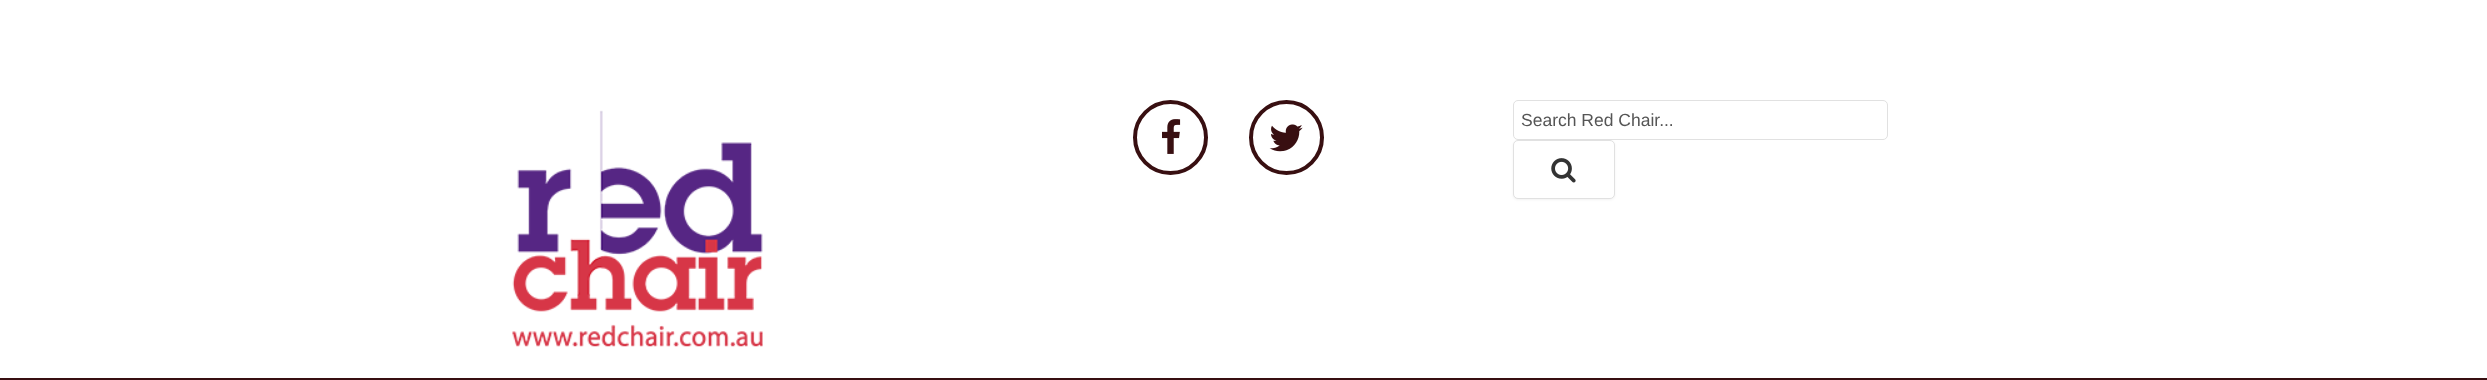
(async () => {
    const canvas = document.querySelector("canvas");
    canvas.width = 2487;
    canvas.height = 380;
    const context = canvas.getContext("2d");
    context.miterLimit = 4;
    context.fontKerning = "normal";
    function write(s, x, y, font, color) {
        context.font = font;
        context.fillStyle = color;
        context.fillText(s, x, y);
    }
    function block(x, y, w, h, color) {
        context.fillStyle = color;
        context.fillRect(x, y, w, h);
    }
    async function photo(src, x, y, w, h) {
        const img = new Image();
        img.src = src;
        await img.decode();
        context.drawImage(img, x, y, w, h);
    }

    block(0, 0, 2487, 380, "rgb(255, 255, 255)");
    await photo("media/1.png", 512, 110, 251, 237);
    context.beginPath();
    context.arc(1170.5, 137.5, 35.5, 0, Math.PI * 2);
    context.strokeStyle = "rgb(56, 15, 17)";
    context.lineWidth = 4;
    context.stroke();
    await photo("media/2.png", 1162, 119, 19, 35);
    context.beginPath();
    context.arc(1286.5, 137.5, 35.5, 0, Math.PI * 2);
    context.stroke();
    await photo("media/3.png", 1269, 124, 34, 28);
    context.beginPath();
    context.roundRect(1513.5, 100.5, 374, 39, 4.5);
    context.strokeStyle = "rgb(225, 225, 225)";
    context.lineWidth = 1;
    context.stroke();
    write("Search Red Chair...", 1521, 126, "17.5px Liberation Sans", "rgb(85, 85, 85)");
    context.fillStyle = "rgba(0, 0, 0, 0.05)";
    context.filter = "blur(1px)";
    context.beginPath();
    context.roundRect(1513, 141, 102, 59, 5);
    context.fill();
    context.filter = "none";
    context.fillStyle = "rgb(255, 255, 255)";
    context.beginPath();
    context.roundRect(1513.5, 140.5, 101, 58, 4.5);
    context.fill();
    context.stroke();
    await photo("media/4.png", 1551, 158, 25, 25);
    block(0, 378, 2487, 2, "rgb(56, 15, 17)");
})();
